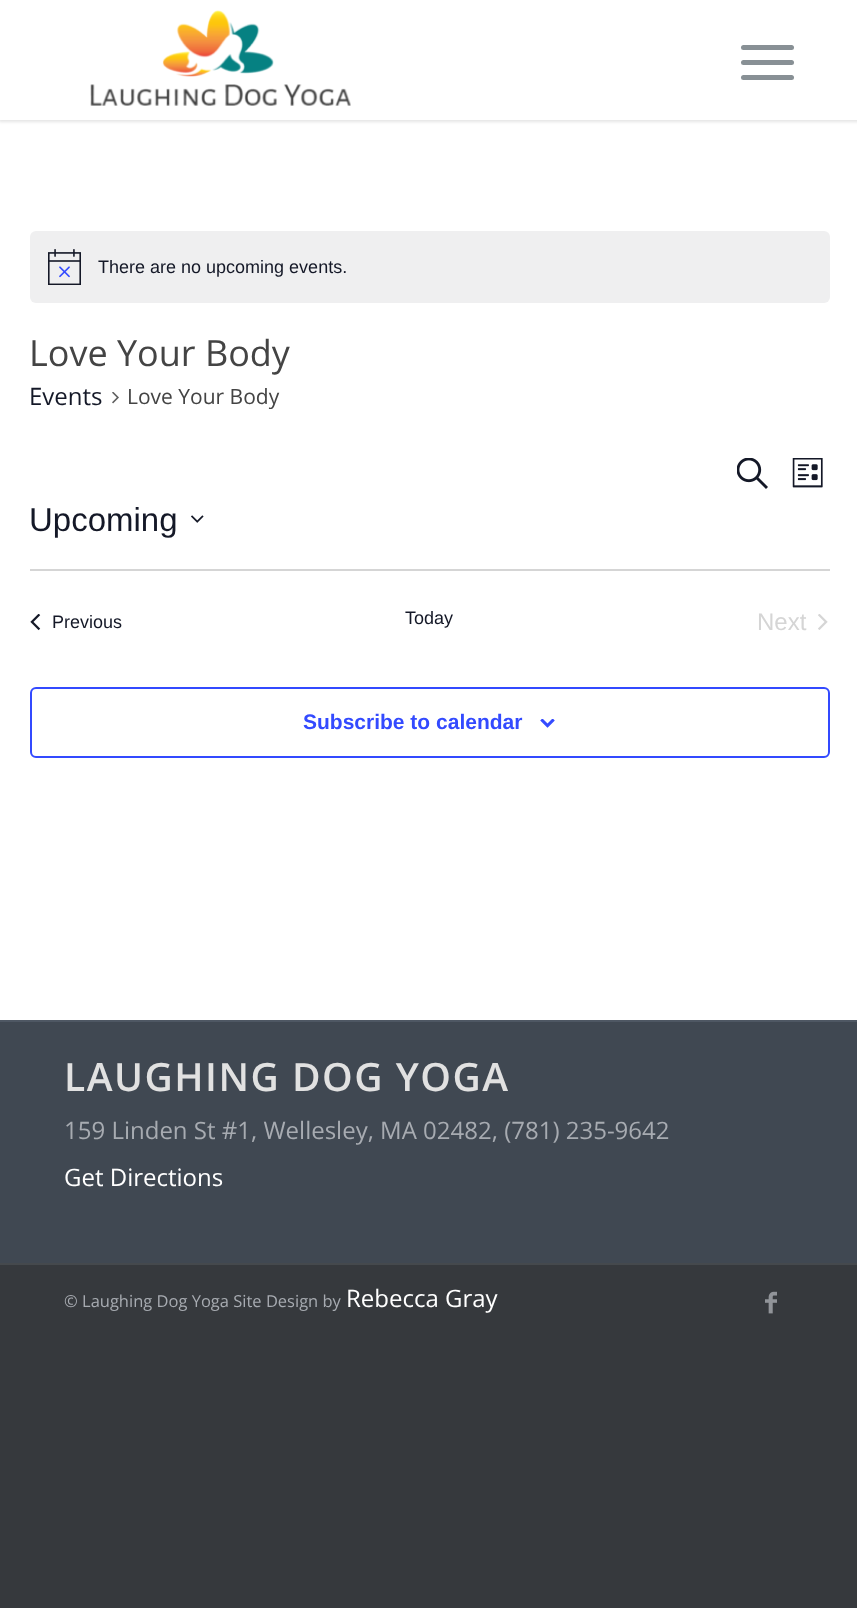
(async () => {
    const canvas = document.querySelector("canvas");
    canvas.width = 857;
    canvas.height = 1608;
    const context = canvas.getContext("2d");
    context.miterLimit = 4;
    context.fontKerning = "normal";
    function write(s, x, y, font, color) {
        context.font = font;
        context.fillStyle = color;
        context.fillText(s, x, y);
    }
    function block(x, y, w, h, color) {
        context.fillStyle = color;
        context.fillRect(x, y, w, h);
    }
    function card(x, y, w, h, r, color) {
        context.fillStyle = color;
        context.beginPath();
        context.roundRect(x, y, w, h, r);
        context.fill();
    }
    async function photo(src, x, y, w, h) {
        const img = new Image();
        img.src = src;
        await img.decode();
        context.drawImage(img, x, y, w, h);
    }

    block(0, 0, 857, 1608, "rgb(54, 57, 61)");
    block(0, 120, 857, 900, "rgb(255, 255, 255)");
    context.fillStyle = "rgba(0, 0, 0, 0.1)";
    context.filter = "blur(1.5px)";
    context.beginPath();
    context.rect(-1, -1, 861, 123);
    context.fill();
    context.filter = "none";
    block(0, 0, 857, 120, "rgb(255, 255, 255)");
    await photo("media/1.png", 90, 10, 261, 96);
    card(741, 60, 53, 5, 2.5, "rgb(136, 144, 149)");
    card(741, 45, 53, 5, 2.5, "rgb(136, 144, 149)");
    card(741, 75, 53, 5, 2.5, "rgb(136, 144, 149)");
    card(30, 231, 800, 72, 6, "rgb(239, 239, 240)");
    await photo("media/2.png", 48, 249, 33, 36);
    write("There are no upcoming events.", 98, 273, "18px Liberation Sans", "rgb(20, 24, 39)");
    write("Love Your Body", 29, 366, "36px Open Sans", "rgb(68, 68, 68)");
    write("Events", 29, 405, "24px Open Sans", "rgb(20, 24, 39)");
    await photo("media/3.png", 112, 392, 7, 12);
    write("Love Your Body", 127, 404, "21px Open Sans", "rgb(68, 68, 68)");
    await photo("media/4.png", 737, 458, 31, 31);
    await photo("media/5.png", 792, 458, 31, 30);
    write("Upcoming", 29, 531, "33px Liberation Sans", "rgb(20, 24, 39)");
    await photo("media/6.png", 191, 515, 13, 8);
    block(30, 569, 800, 2, "rgb(213, 213, 213)");
    await photo("media/7.png", 30, 614, 11, 17);
    write("Previous", 52, 628, "18px Liberation Sans", "rgb(20, 24, 39)");
    write("Today", 405, 624, "18px Liberation Sans", "rgb(20, 24, 39)");
    write("Next", 757, 630, "24px Liberation Sans", "rgb(213, 213, 213)");
    await photo("media/8.png", 818, 614, 10, 16);
    context.beginPath();
    context.roundRect(31, 688, 798, 69, 5);
    context.strokeStyle = "rgb(51, 74, 255)";
    context.lineWidth = 2;
    context.stroke();
    write("Subscribe to calendar", 303, 729, "bold 21px Liberation Sans", "rgb(51, 74, 255)");
    await photo("media/9.png", 540, 719, 15, 9);
    block(0, 1022, 857, 241, "rgb(64, 72, 82)");
    block(0, 1020, 857, 2, "rgb(78, 87, 99)");
    context.letterSpacing = "1.5px";
    write("LAUGHING DOG YOGA", 64, 1091, "600 39px Open Sans", "rgb(225, 225, 225)");
    context.letterSpacing = "0px";
    write("159 Linden St #1, Wellesley, MA 02482, (781) 235-9642", 64, 1139, "24px Open Sans", "rgb(167, 171, 177)");
    write("Get Directions", 64, 1186, "24px Open Sans", "rgb(255, 255, 255)");
    block(0, 1263, 857, 2, "rgb(69, 73, 77)");
    write("© Laughing Dog Yoga Site Design by", 64, 1307, "16.5px Open Sans", "rgb(167, 171, 177)");
    write("Rebecca Gray", 346, 1307, "24px Open Sans", "rgb(255, 255, 255)");
    await photo("media/10.png", 765, 1291, 12, 23);
})();
